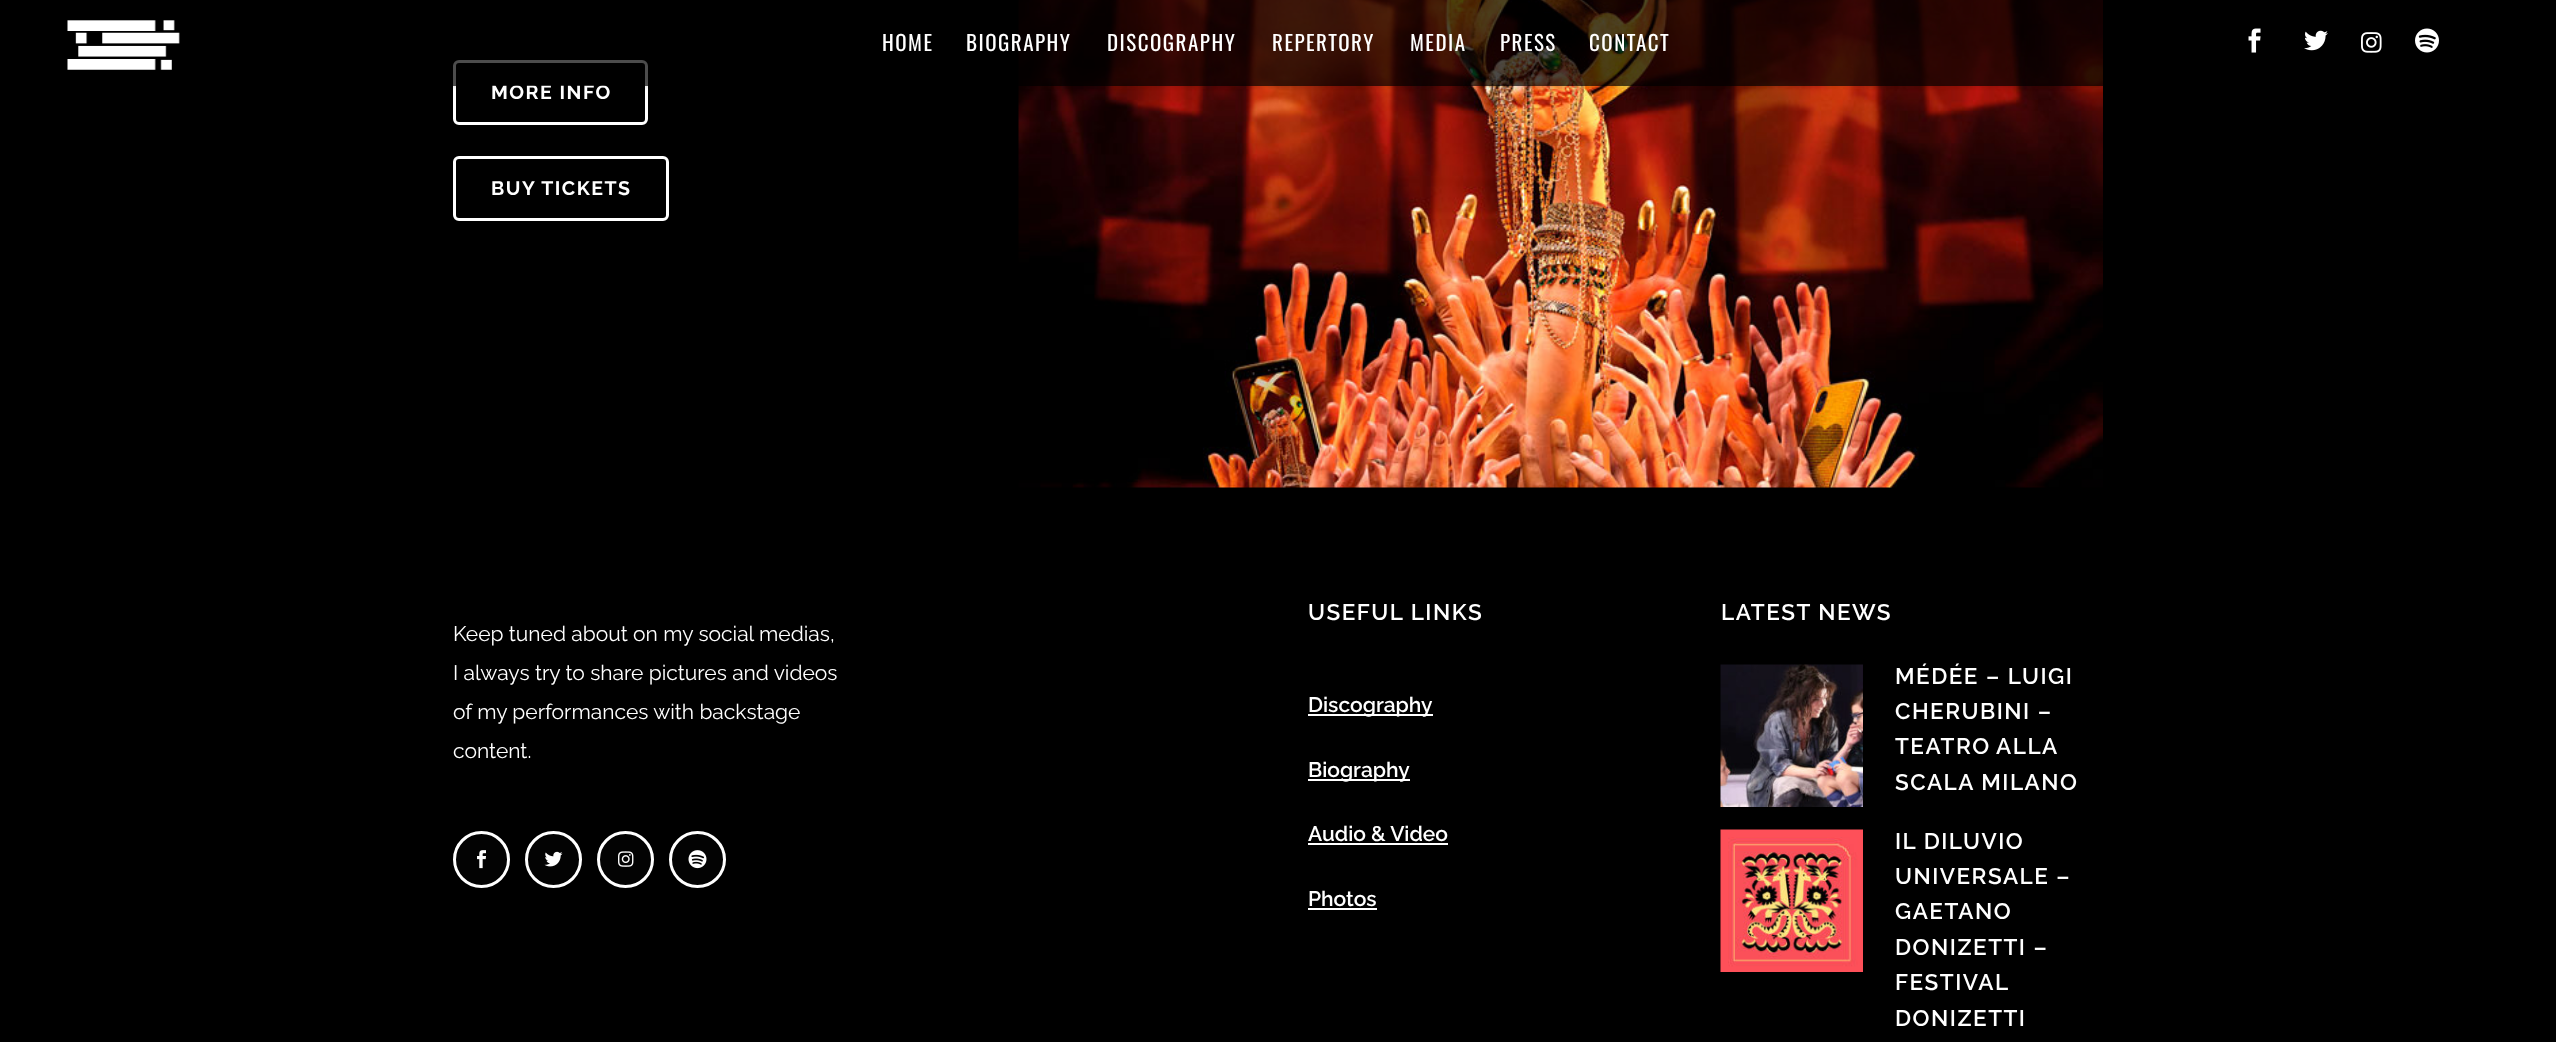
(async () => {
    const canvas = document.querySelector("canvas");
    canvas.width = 2556;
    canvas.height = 1042;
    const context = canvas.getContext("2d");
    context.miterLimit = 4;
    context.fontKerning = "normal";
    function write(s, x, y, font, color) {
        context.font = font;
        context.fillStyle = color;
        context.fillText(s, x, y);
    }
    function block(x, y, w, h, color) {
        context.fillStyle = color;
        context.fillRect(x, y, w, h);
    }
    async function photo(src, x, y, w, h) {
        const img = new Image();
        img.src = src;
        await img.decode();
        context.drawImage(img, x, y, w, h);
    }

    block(0, 0, 2556, 1042, "rgb(0, 0, 0)");
    context.beginPath();
    context.roundRect(454.5, 61.5, 192, 62, 4.5);
    context.strokeStyle = "rgb(255, 255, 255)";
    context.lineWidth = 3;
    context.stroke();
    await photo("media/6.png", 1018, 0, 1085, 488);
    context.save();
    context.beginPath();
    context.moveTo(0, 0);
    context.lineTo(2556, 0);
    context.lineTo(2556, 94);
    context.lineTo(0, 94);
    context.closePath();
    context.moveTo(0, 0);
    context.lineTo(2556, 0);
    context.lineTo(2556, 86);
    context.lineTo(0, 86);
    context.closePath();
    context.clip("evenodd");
    context.fillStyle = "rgba(0, 0, 0, 0.11)";
    context.filter = "blur(2px)";
    context.beginPath();
    context.rect(0, 2, 2556, 85);
    context.fill();
    context.filter = "none";
    context.restore();
    context.letterSpacing = "1.5px";
    write("MORE INFO", 491, 99, "bold 19.5px Raleway", "rgb(255, 255, 255)");
    block(453, 0, 1650, 86, "rgba(0, 0, 0, 0.7)");
    await photo("media/1.png", 67, 20, 113, 50);
    write("HOME", 882, 51, "21px Oswald", "rgb(255, 255, 255)");
    write("BIOGRAPHY", 966, 51, "21px Oswald", "rgb(255, 255, 255)");
    write("DISCOGRAPHY", 1107, 51, "21px Oswald", "rgb(255, 255, 255)");
    write("REPERTORY", 1272, 51, "21px Oswald", "rgb(255, 255, 255)");
    write("MEDIA", 1410, 51, "21px Oswald", "rgb(255, 255, 255)");
    write("PRESS", 1500, 51, "21px Oswald", "rgb(255, 255, 255)");
    write("CONTACT", 1589, 51, "21px Oswald", "rgb(255, 255, 255)");
    await photo("media/2.png", 2248, 28, 13, 25);
    await photo("media/3.png", 2304, 30, 24, 21);
    await photo("media/4.png", 2361, 32, 21, 21);
    await photo("media/5.png", 2415, 28, 24, 25);
    context.beginPath();
    context.roundRect(454.5, 157.5, 213, 62, 4.5);
    context.stroke();
    write("BUY TICKETS", 491, 195, "bold 19.5px Raleway", "rgb(255, 255, 255)");
    context.letterSpacing = "0px";
    write("Keep tuned about on my social medias,", 453, 641, "21px Raleway", "rgb(255, 255, 255)");
    write("I always try to share pictures and videos", 453, 680, "21px Raleway", "rgb(255, 255, 255)");
    write("of my performances with backstage", 453, 719, "21px Raleway", "rgb(255, 255, 255)");
    write("content.", 453, 758, "21px Raleway", "rgb(255, 255, 255)");
    context.fillStyle = "rgb(3, 3, 3)";
    context.beginPath();
    context.arc(481.5, 859.5, 27, 0, Math.PI * 2);
    context.fill();
    context.stroke();
    await photo("media/7.png", 477, 850, 9, 19);
    context.beginPath();
    context.arc(553.5, 859.5, 27, 0, Math.PI * 2);
    context.fill();
    context.stroke();
    await photo("media/8.png", 544, 851, 19, 16);
    context.beginPath();
    context.arc(625.5, 859.5, 27, 0, Math.PI * 2);
    context.fill();
    context.stroke();
    await photo("media/9.png", 618, 851, 16, 16);
    context.beginPath();
    context.arc(697.5, 859.5, 27, 0, Math.PI * 2);
    context.fill();
    context.stroke();
    await photo("media/10.png", 688, 850, 19, 19);
    context.letterSpacing = "1.5px";
    write("USEFUL LINKS", 1308, 620, "600 22.5px Raleway", "rgb(255, 255, 255)");
    block(1308, 714, 125, 2, "rgb(255, 255, 255)");
    context.letterSpacing = "0px";
    write("Discography", 1308, 712, "600 21px Raleway", "rgb(255, 255, 255)");
    block(1308, 779, 102, 2, "rgb(255, 255, 255)");
    write("Biography", 1308, 777, "600 21px Raleway", "rgb(255, 255, 255)");
    write("Audio & Video", 1308, 841, "600 21px Raleway", "rgb(255, 255, 255)");
    block(1308, 843, 140, 2, "rgb(255, 255, 255)");
    write("Photos", 1308, 906, "600 21px Raleway", "rgb(255, 255, 255)");
    block(1308, 908, 69, 2, "rgb(255, 255, 255)");
    context.letterSpacing = "1.5px";
    write("LATEST NEWS", 1721, 620, "600 22.5px Raleway", "rgb(255, 255, 255)");
    await photo("media/11.png", 1720, 664, 143, 143);
    write("MÉDÉE – LUIGI", 1895, 684, "600 22.5px Raleway", "rgb(255, 255, 255)");
    write("CHERUBINI –", 1895, 719, "600 22.5px Raleway", "rgb(255, 255, 255)");
    context.wordSpacing = "-1px";
    write("TEATRO ALLA", 1895, 754, "600 22.5px Raleway", "rgb(255, 255, 255)");
    context.wordSpacing = "0px";
    write("SCALA MILANO", 1895, 790, "600 22.5px Raleway", "rgb(255, 255, 255)");
    await photo("media/12.png", 1720, 829, 143, 143);
    write("IL DILUVIO", 1895, 849, "600 22.5px Raleway", "rgb(255, 255, 255)");
    write("UNIVERSALE –", 1895, 884, "600 22.5px Raleway", "rgb(255, 255, 255)");
    write("GAETANO", 1895, 919, "600 22.5px Raleway", "rgb(255, 255, 255)");
    write("DONIZETTI –", 1895, 955, "600 22.5px Raleway", "rgb(255, 255, 255)");
    write("FESTIVAL", 1895, 990, "600 22.5px Raleway", "rgb(255, 255, 255)");
    write("DONIZETTI", 1895, 1026, "600 22.5px Raleway", "rgb(255, 255, 255)");
})();
